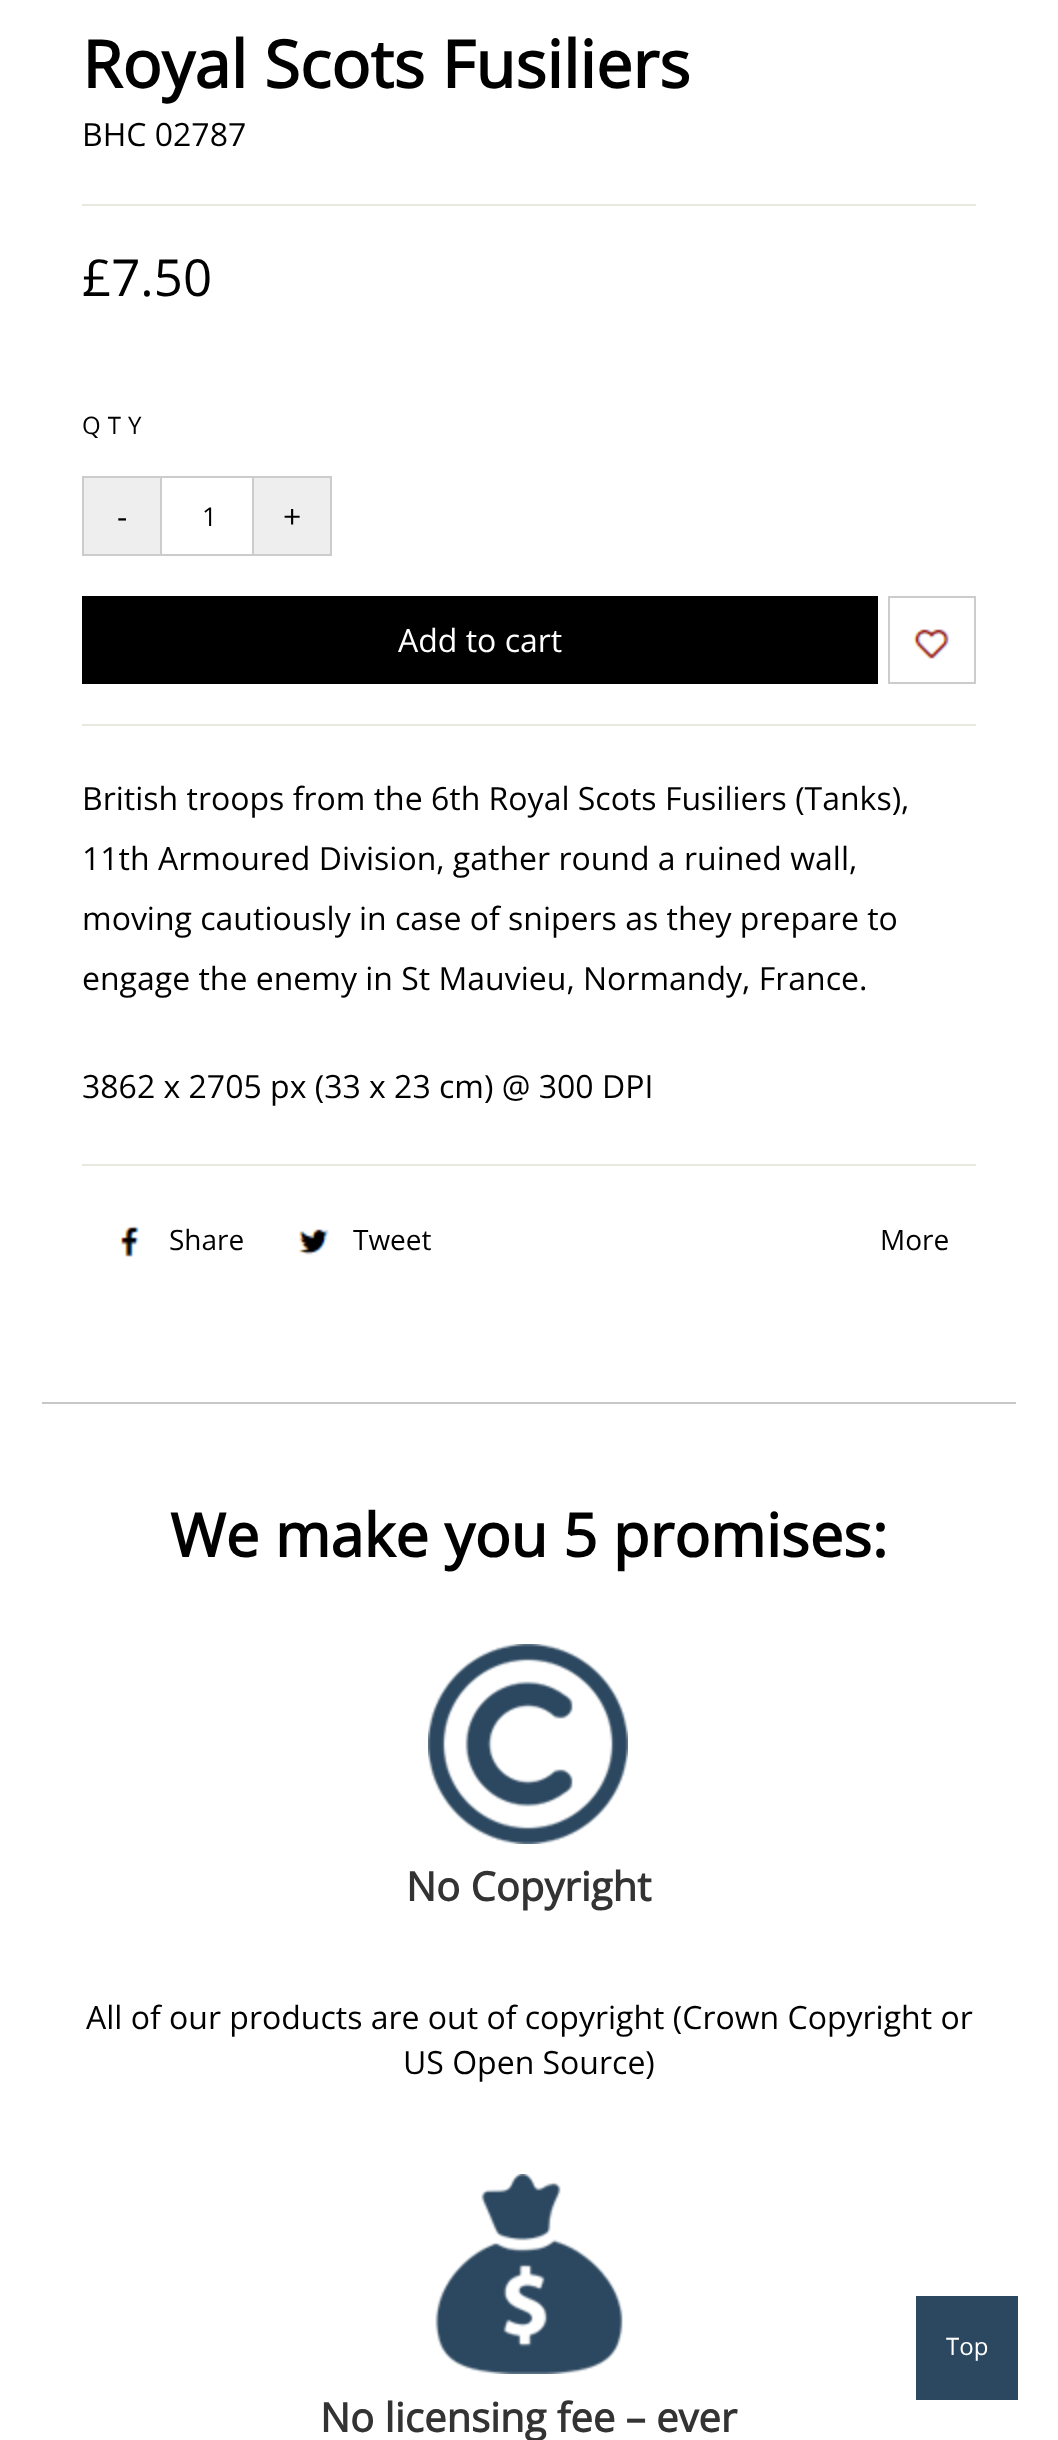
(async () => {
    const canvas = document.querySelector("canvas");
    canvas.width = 1058;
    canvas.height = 2440;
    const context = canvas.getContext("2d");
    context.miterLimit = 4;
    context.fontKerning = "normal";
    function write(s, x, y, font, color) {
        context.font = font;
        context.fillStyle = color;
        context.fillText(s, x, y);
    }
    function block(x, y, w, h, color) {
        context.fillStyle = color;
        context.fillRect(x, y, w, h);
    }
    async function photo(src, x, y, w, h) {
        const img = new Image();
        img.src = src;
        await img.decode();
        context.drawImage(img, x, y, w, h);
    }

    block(0, 0, 1058, 2440, "rgb(255, 255, 255)");
    write("Royal Scots Fusiliers", 82, 88, "bold 65.25px Open Sans", "rgb(0, 0, 0)");
    write("BHC 02787", 82, 146, "32px Open Sans", "rgb(0, 0, 0)");
    block(82, 204, 894, 2, "rgb(232, 232, 225)");
    write("£7.50", 82, 296, "51px Open Sans", "rgb(0, 0, 0)");
    context.letterSpacing = "7px";
    write("QTY", 82, 434, "24px Open Sans", "rgb(0, 0, 0)");
    context.fillStyle = "rgb(238, 238, 238)";
    context.beginPath();
    context.rect(83, 477, 78, 78);
    context.fill();
    context.strokeStyle = "rgb(204, 204, 204)";
    context.lineWidth = 2;
    context.stroke();
    context.letterSpacing = "0px";
    write("-", 117, 528, "32px Open Sans", "rgb(0, 0, 0)");
    block(162, 476, 90, 2, "rgb(204, 204, 204)");
    block(162, 554, 90, 2, "rgb(204, 204, 204)");
    write("1", 202, 526, "26px Open Sans", "rgb(0, 0, 0)");
    context.fillStyle = "rgb(238, 238, 238)";
    context.beginPath();
    context.rect(253, 477, 78, 78);
    context.fill();
    context.stroke();
    write("+", 283, 528, "32px Open Sans", "rgb(0, 0, 0)");
    block(82, 596, 796, 88, "rgb(0, 0, 0)");
    write("Add to cart", 398, 652, "32px Open Sans", "rgb(255, 255, 255)");
    context.strokeRect(889, 597, 86, 86);
    await photo("media/1.png", 914, 629, 36, 30);
    block(82, 724, 894, 2, "rgb(232, 232, 225)");
    write("British troops from the 6th Royal Scots Fusiliers (Tanks),", 82, 810, "32px Open Sans", "rgb(0, 0, 0)");
    write("11th Armoured Division, gather round a ruined wall,", 82, 870, "32px Open Sans", "rgb(0, 0, 0)");
    write("moving cautiously in case of snipers as they prepare to", 82, 930, "32px Open Sans", "rgb(0, 0, 0)");
    write("engage the enemy in St Mauvieu, Normandy, France.", 82, 990, "32px Open Sans", "rgb(0, 0, 0)");
    write("3862 x 2705 px (33 x 23 cm) @ 300 DPI", 82, 1098, "32px Open Sans", "rgb(0, 0, 0)");
    block(82, 1164, 894, 2, "rgb(232, 232, 225)");
    await photo("media/2.png", 119, 1226, 20, 31);
    write("Share", 169, 1250, "28px Open Sans", "rgb(0, 0, 0)");
    await photo("media/3.png", 298, 1229, 32, 26);
    write("Tweet", 353, 1250, "28px Open Sans", "rgb(0, 0, 0)");
    write("More", 880, 1250, "28px Open Sans", "rgb(0, 0, 0)");
    block(42, 1402, 974, 2, "rgb(199, 199, 199)");
    write("We make you 5 promises:", 170, 1557, "bold 60px Open Sans", "rgb(0, 0, 0)");
    await photo("media/4.png", 428, 1644, 200, 200);
    write("No Copyright", 406, 1901, "bold 40px Open Sans", "rgb(51, 51, 51)");
    write("All of our products are out of copyright (Crown Copyright or", 86, 2029, "32px Open Sans", "rgb(0, 0, 0)");
    write("US Open Source)", 403, 2074, "32px Open Sans", "rgb(0, 0, 0)");
    await photo("media/5.png", 435, 2174, 188, 200);
    write("No licensing fee – ever", 320, 2432, "bold 40px Open Sans", "rgb(51, 51, 51)");
    block(916, 2296, 102, 104, "rgb(44, 72, 96)");
    write("Top", 946, 2355, "24px Open Sans", "rgb(255, 255, 255)");
})();
